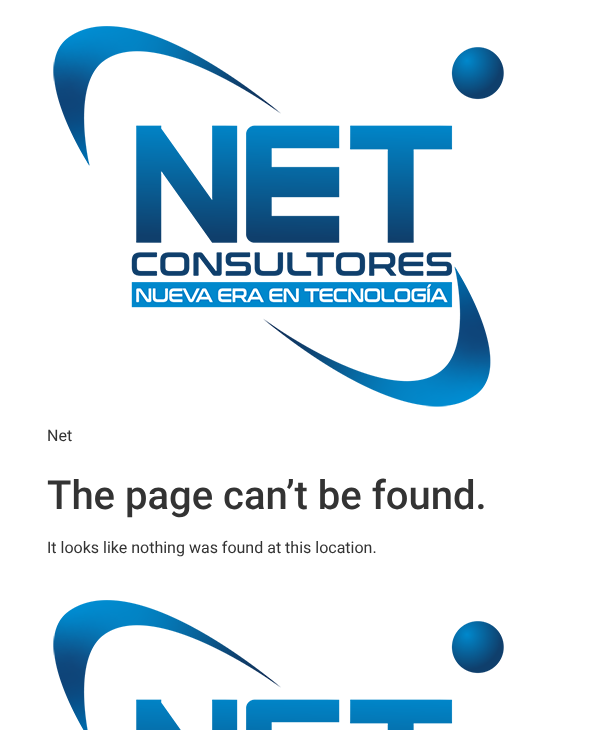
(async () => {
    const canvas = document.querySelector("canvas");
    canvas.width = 593;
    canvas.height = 730;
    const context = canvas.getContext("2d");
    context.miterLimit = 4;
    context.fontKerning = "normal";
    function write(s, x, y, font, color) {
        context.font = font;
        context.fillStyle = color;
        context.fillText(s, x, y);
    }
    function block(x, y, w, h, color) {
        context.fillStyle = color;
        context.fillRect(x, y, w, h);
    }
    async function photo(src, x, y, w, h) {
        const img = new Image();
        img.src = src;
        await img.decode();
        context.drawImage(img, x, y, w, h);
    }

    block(0, 0, 593, 730, "rgb(255, 255, 255)");
    await photo("media/1.png", 53, 26, 451, 381);
    write("Net", 47, 441, "16px Roboto", "rgb(51, 51, 51)");
    write("The page can’t be found.", 47, 509, "500 40px Roboto", "rgb(51, 51, 51)");
    write("It looks like nothing was found at this location.", 47, 553, "16px Roboto", "rgb(51, 51, 51)");
    await photo("media/2.png", 53, 600, 451, 130);
})();
